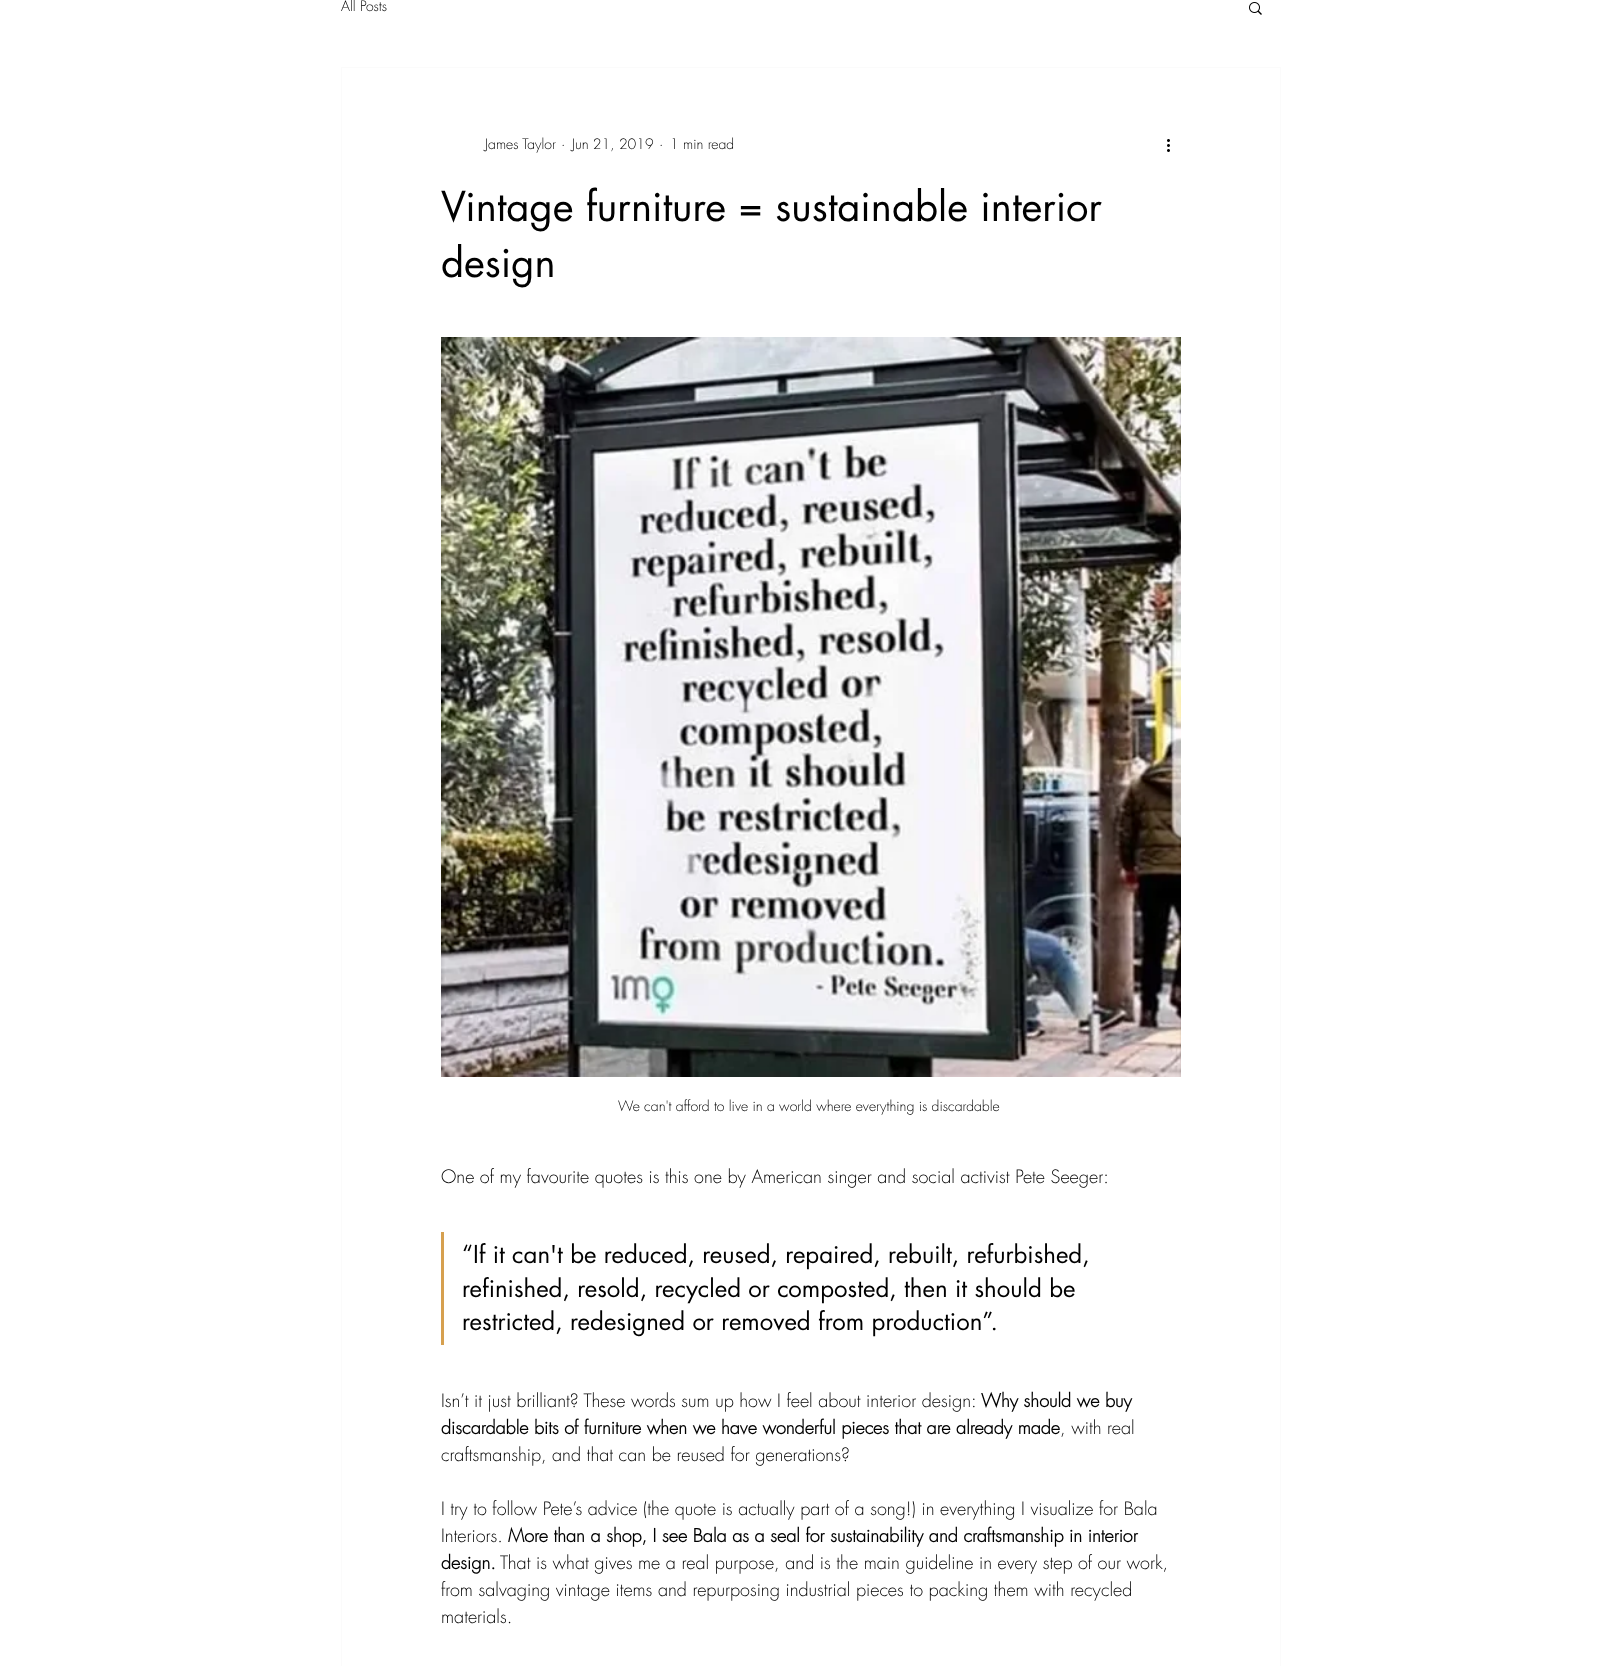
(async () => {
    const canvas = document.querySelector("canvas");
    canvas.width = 1621;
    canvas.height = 1666;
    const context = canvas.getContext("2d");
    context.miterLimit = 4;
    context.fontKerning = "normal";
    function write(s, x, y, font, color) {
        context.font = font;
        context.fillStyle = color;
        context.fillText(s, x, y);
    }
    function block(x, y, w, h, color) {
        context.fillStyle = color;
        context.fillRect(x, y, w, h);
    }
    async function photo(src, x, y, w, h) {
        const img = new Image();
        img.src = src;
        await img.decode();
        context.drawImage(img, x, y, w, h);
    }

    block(0, 0, 1621, 1666, "rgb(255, 255, 255)");
    write("All Posts", 341, 11, "300 14px futura", "rgb(0, 0, 0)");
    await photo("media/1.png", 1249, 2, 13, 13);
    context.strokeStyle = "rgb(251, 251, 251)";
    context.strokeRect(341.5, 67.5, 939, 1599);
    write("James Taylor", 485, 149, "300 14px futura", "rgb(0, 0, 0)");
    write("·", 561, 149, "300 14px futura", "rgb(0, 0, 0)");
    write("Jun 21, 2019", 572, 149, "300 14px futura", "rgb(0, 0, 0)");
    write("·", 659, 149, "300 14px futura", "rgb(0, 0, 0)");
    write("1 min read", 670, 149, "300 14px futura", "rgb(0, 0, 0)");
    await photo("media/2.png", 1167, 139, 3, 13);
    write("Vintage furniture = sustainable interior", 441, 221, "40px futura", "rgb(0, 0, 0)");
    write("design", 441, 277, "40px futura", "rgb(0, 0, 0)");
    await photo("media/3.png", 441, 337, 740, 740);
    write("We can't afford to live in a world where everything is discardable", 618, 1111, "300 14px futura", "rgb(0, 0, 0)");
    write("One of my favourite quotes is this one by American singer and social activist Pete Seeger:", 441, 1183, "300 18px futura", "rgb(0, 0, 0)");
    block(441, 1232, 3, 113, "rgb(214, 160, 79)");
    write("“If it can't be reduced, reused, repaired, rebuilt, refurbished,", 462, 1263, "24px futura", "rgb(0, 0, 0)");
    write("refinished, resold, recycled or composted, then it should be", 462, 1297, "24px futura", "rgb(0, 0, 0)");
    write("restricted, redesigned or removed from production”.", 462, 1330, "24px futura", "rgb(0, 0, 0)");
    write("Isn’t it just brilliant? These words sum up how I feel about interior design:", 441, 1407, "300 18px futura", "rgb(0, 0, 0)");
    write("Why should we buy", 981, 1407, "bold 18px futura", "rgb(0, 0, 0)");
    write("discardable bits of furniture when we have wonderful pieces that are already made", 441, 1434, "bold 18px futura", "rgb(0, 0, 0)");
    write(", with real", 1060, 1434, "300 18px futura", "rgb(0, 0, 0)");
    write("craftsmanship, and that can be reused for generations?", 441, 1461, "300 18px futura", "rgb(0, 0, 0)");
    write("I try to follow Pete’s advice (the quote is actually part of a song!) in everything I visualize for Bala", 441, 1515, "300 18px futura", "rgb(0, 0, 0)");
    write("Interiors.", 441, 1542, "300 18px futura", "rgb(0, 0, 0)");
    write("More than a shop, I see Bala as a seal for sustainability and craftsmanship in interior", 508, 1542, "bold 18px futura", "rgb(0, 0, 0)");
    write("design.", 441, 1569, "bold 18px futura", "rgb(0, 0, 0)");
    write("That is what gives me a real purpose, and is the main guideline in every step of our work,", 500, 1569, "300 18px futura", "rgb(0, 0, 0)");
    write("from salvaging vintage items and repurposing industrial pieces to packing them with recycled", 441, 1596, "300 18px futura", "rgb(0, 0, 0)");
    write("materials.", 441, 1623, "300 18px futura", "rgb(0, 0, 0)");
})();
